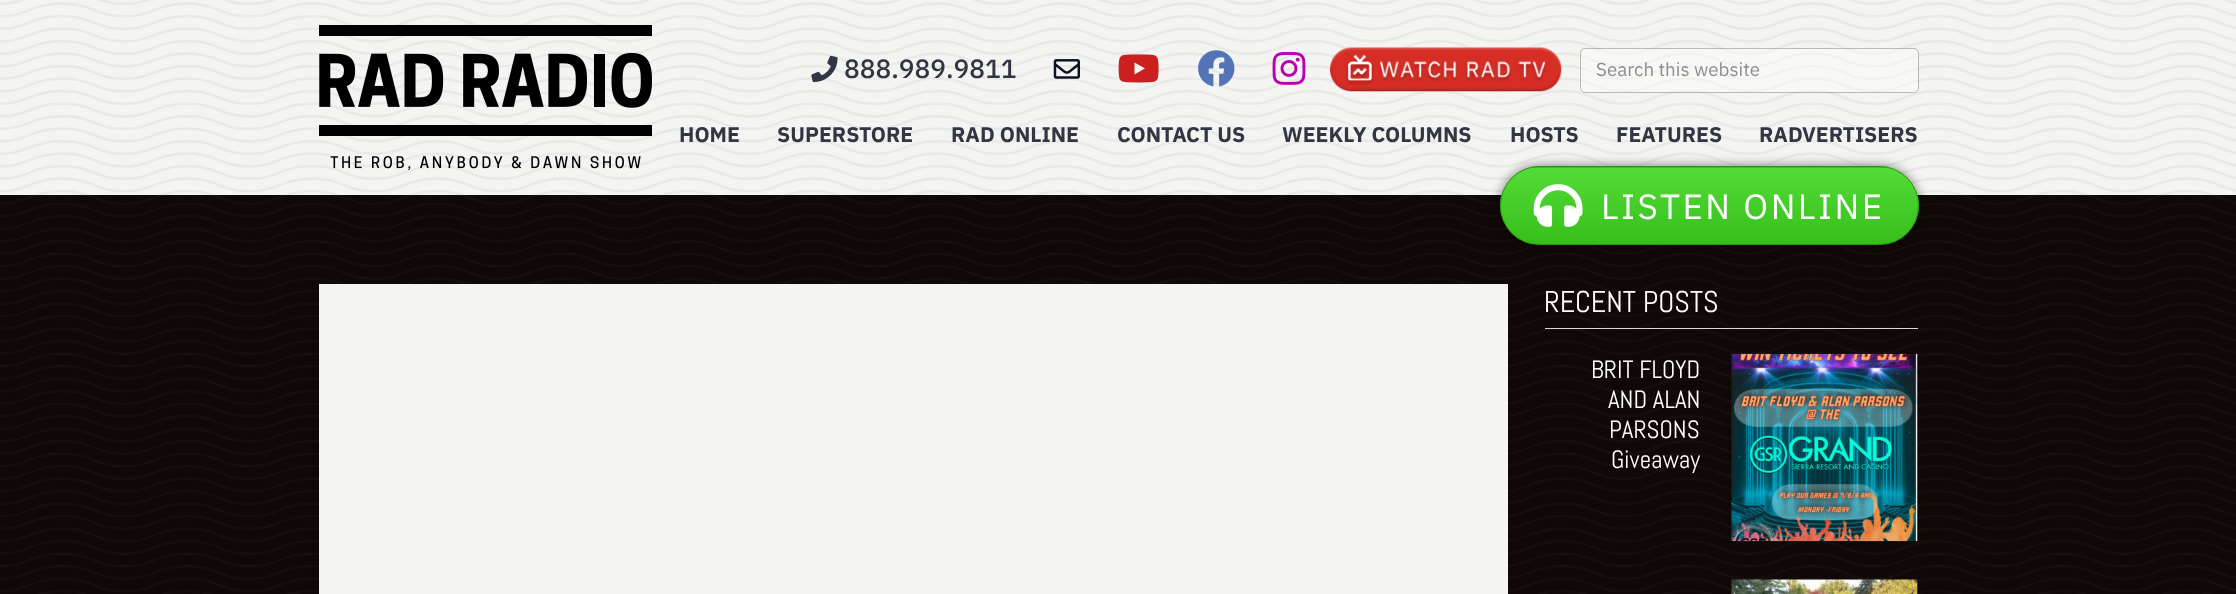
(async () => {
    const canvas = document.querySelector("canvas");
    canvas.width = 2236;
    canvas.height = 594;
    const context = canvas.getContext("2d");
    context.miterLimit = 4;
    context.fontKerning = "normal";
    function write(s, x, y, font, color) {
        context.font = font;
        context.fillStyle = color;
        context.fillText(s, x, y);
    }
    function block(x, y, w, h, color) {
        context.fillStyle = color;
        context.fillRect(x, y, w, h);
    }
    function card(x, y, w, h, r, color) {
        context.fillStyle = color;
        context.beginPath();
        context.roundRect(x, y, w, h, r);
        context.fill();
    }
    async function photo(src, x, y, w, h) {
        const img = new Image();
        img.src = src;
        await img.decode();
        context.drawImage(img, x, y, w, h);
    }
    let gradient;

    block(0, 0, 2236, 594, "rgb(16, 8, 6)");
    await photo("media/1.png", 0, 195, 2236, 399);
    block(0, 0, 2236, 195, "rgb(244, 245, 242)");
    await photo("media/2.png", 0, 0, 2236, 195);
    await photo("media/3.png", 319, 25, 333, 145);
    await photo("media/4.png", 811, 55, 27, 27);
    write("888.989.9811", 844, 78, "500 26.25px IBM Plex Sans", "rgb(50, 54, 66)");
    await photo("media/5.png", 1053, 59, 27, 20);
    await photo("media/6.png", 1118, 54, 41, 29);
    await photo("media/7.png", 1198, 50, 37, 37);
    await photo("media/8.png", 1272, 52, 34, 33);
    await photo("media/9.png", 1330, 47, 232, 45);
    card(1580, 48, 339, 45, 5, "rgba(255, 255, 255, 0.4)");
    context.beginPath();
    context.roundRect(1580.5, 48.5, 338, 44, 4.5);
    context.strokeStyle = "rgba(0, 0, 0, 0.25)";
    context.stroke();
    write("Search this website", 1596, 76, "18.75px IBM Plex Sans", "rgb(141, 141, 141)");
    write("HOME", 679, 142, "bold 21.25px IBM Plex Sans", "rgb(50, 54, 66)");
    write("SUPERSTORE", 777, 142, "bold 21.25px IBM Plex Sans", "rgb(50, 54, 66)");
    write("RAD ONLINE", 951, 142, "bold 21.25px IBM Plex Sans", "rgb(50, 54, 66)");
    write("CONTACT US", 1117, 142, "bold 21.25px IBM Plex Sans", "rgb(50, 54, 66)");
    write("WEEKLY COLUMNS", 1282, 142, "bold 21.25px IBM Plex Sans", "rgb(50, 54, 66)");
    write("HOSTS", 1510, 142, "bold 21.25px IBM Plex Sans", "rgb(50, 54, 66)");
    write("FEATURES", 1616, 142, "bold 21.25px IBM Plex Sans", "rgb(50, 54, 66)");
    write("RADVERTISERS", 1759, 142, "bold 21.25px IBM Plex Sans", "rgb(50, 54, 66)");
    context.fillStyle = "rgba(0, 0, 0, 0.5)";
    context.filter = "blur(5.5px)";
    context.beginPath();
    context.roundRect(1500, 166, 419, 79, 39.5);
    context.fill();
    context.filter = "none";
    context.save();
    context.beginPath();
    context.roundRect(1500, 166, 419, 79, 39.5);
    context.clip();
    gradient = context.createLinearGradient(1709, 91, 1709, 168);
    gradient.addColorStop(0, "rgb(84, 221, 56)");
    gradient.addColorStop(1, "rgb(54, 191, 26)");
    context.fillStyle = gradient;
    context.fillRect(1527, 166, 365, 2);
    gradient = context.createLinearGradient(1709, 167, 1709, 244);
    gradient.addColorStop(0, "rgb(84, 221, 56)");
    gradient.addColorStop(1, "rgb(54, 191, 26)");
    context.fillStyle = gradient;
    context.fillRect(1500, 168, 419, 76);
    context.restore();
    context.beginPath();
    context.roundRect(1500.5, 166.5, 418, 78, 39);
    context.strokeStyle = "rgb(43, 153, 21)";
    context.stroke();
    await photo("media/10.png", 1533, 184, 50, 43);
    context.letterSpacing = "2.5px";
    write("LISTEN ONLINE", 1601, 219, "35px IBM Plex Sans", "rgb(255, 255, 255)");
    block(319, 284, 1189, 310, "rgb(244, 245, 242)");
    context.letterSpacing = "0px";
    write("RECENT POSTS", 1544, 312, "30px Abel", "rgb(255, 255, 255)");
    block(1545, 328, 373, 1, "rgb(215, 216, 219)");
    write("BRIT FLOYD", 1591, 378, "25px Abel", "rgb(255, 255, 255)");
    write("AND ALAN", 1608, 408, "25px Abel", "rgb(255, 255, 255)");
    write("PARSONS", 1609, 438, "25px Abel", "rgb(255, 255, 255)");
    write("Giveaway", 1611, 468, "25px Abel", "rgb(255, 255, 255)");
    await photo("media/11.png", 1731, 353, 187, 189);
    await photo("media/12.png", 1731, 579, 187, 15);
})();
